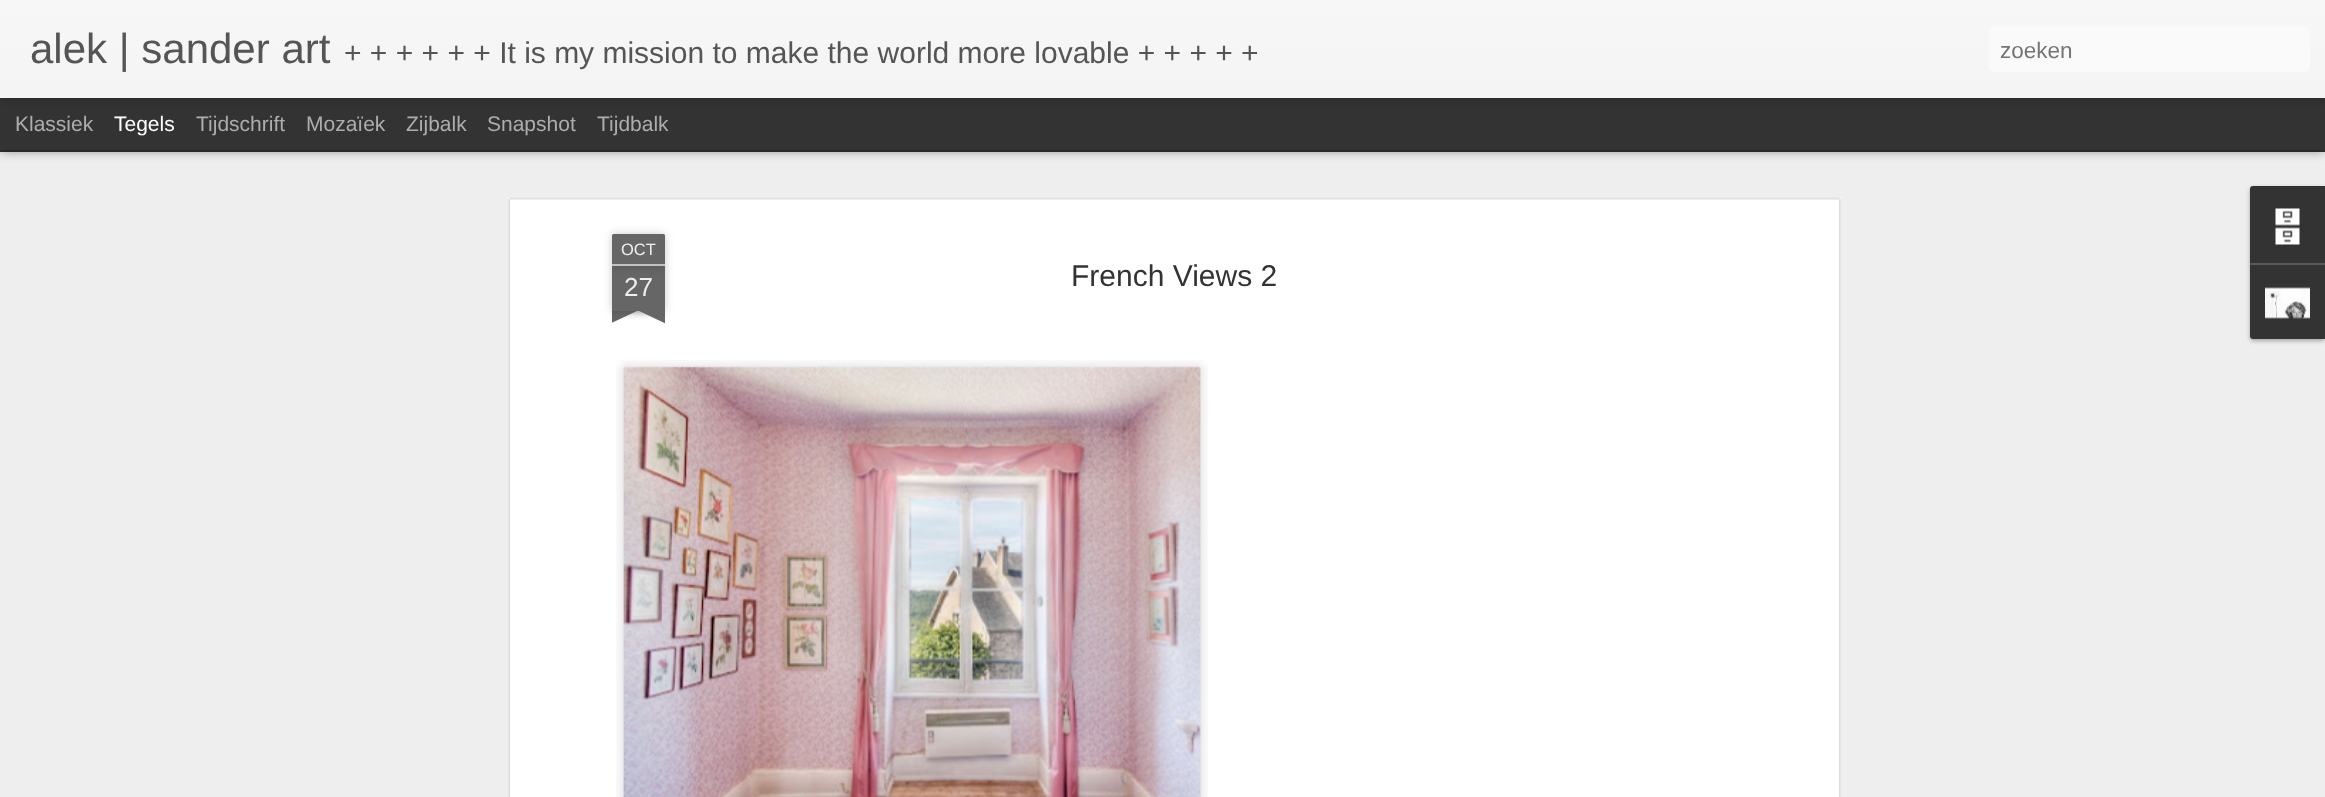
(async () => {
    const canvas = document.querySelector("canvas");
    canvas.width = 2325;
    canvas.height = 797;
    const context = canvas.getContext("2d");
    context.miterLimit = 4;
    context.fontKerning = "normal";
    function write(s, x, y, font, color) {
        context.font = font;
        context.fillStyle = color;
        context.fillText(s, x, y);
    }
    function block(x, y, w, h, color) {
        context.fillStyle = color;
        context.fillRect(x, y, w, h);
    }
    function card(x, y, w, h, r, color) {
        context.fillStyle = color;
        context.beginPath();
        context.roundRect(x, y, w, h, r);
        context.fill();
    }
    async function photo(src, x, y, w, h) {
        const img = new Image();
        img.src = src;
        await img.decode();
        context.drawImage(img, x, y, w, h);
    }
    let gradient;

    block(0, 0, 2325, 797, "rgb(51, 51, 51)");
    block(0, 152, 2325, 645, "rgb(238, 238, 238)");
    context.fillStyle = "rgba(0, 0, 0, 0.5)";
    context.filter = "blur(6px)";
    context.beginPath();
    context.rect(0, 98, 2325, 52);
    context.fill();
    context.filter = "none";
    block(0, 98, 2325, 52, "rgb(51, 51, 51)");
    context.fillStyle = "rgba(0, 0, 0, 0.3)";
    context.filter = "blur(4px)";
    context.beginPath();
    context.rect(0, 0, 2325, 98);
    context.fill();
    context.filter = "none";
    gradient = context.createLinearGradient(0, 0, 0, 98);
    gradient.addColorStop(0, "rgb(247, 247, 247)");
    gradient.addColorStop(1, "rgb(244, 244, 244)");
    context.fillStyle = gradient;
    context.fillRect(0, 0, 2325, 98);
    write("alek | sander art", 30, 63, "42px Liberation Sans", "rgb(85, 85, 85)");
    write("+ + + + + + It is my mission to make the world more lovable + + + + +", 344, 63, "30px Liberation Sans", "rgb(85, 85, 85)");
    card(1989, 27, 321, 45, 5, "rgb(250, 250, 250)");
    write("zoeken", 2000, 58, "22.5px Liberation Sans", "rgb(117, 117, 117)");
    write("Klassiek", 15, 131, "21px Liberation Sans", "rgb(173, 173, 173)");
    write("Tegels", 114, 131, "21px Liberation Sans", "rgb(255, 255, 255)");
    write("Tijdschrift", 196, 131, "21px Liberation Sans", "rgb(173, 173, 173)");
    write("Mozaïek", 306, 131, "21px Liberation Sans", "rgb(173, 173, 173)");
    write("Zijbalk", 406, 131, "21px Liberation Sans", "rgb(173, 173, 173)");
    write("Snapshot", 487, 131, "21px Liberation Sans", "rgb(173, 173, 173)");
    write("Tijdbalk", 597, 131, "21px Liberation Sans", "rgb(173, 173, 173)");
    block(507, 197, 1335, 600, "rgb(255, 255, 255)");
    await photo("media/1.png", 507, 197, 1335, 600);
    context.fillStyle = "rgba(0, 0, 0, 0.2)";
    context.filter = "blur(4px)";
    context.beginPath();
    context.rect(612, 266, 53, 45);
    context.fill();
    context.filter = "none";
    block(612, 266, 53, 45, "rgb(102, 102, 102)");
    context.fillStyle = "rgba(0, 0, 0, 0.2)";
    context.filter = "blur(4px)";
    context.beginPath();
    context.roundRect(612, 234, 53, 32, 1.5);
    context.fill();
    context.filter = "none";
    context.fillStyle = "rgb(102, 102, 102)";
    context.beginPath();
    context.roundRect(612, 234, 53, 32, [1.5, 1.5, 0, 0]);
    context.fill();
    block(612, 264, 53, 2, "rgb(194, 194, 194)");
    write("OCT", 621, 255, "16.5px Liberation Sans", "rgb(238, 238, 238)");
    write("27", 624, 296, "26px Liberation Sans", "rgb(238, 238, 238)");
    context.save();
    context.beginPath();
    context.rect(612, 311, 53, 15);
    context.clip();
    context.fillStyle = "rgba(0, 0, 0, 0.2)";
    context.filter = "blur(4px)";
    context.beginPath();
    context.rect(599, 296, 75, 15);
    context.fill();
    context.filter = "none";
    context.restore();
    context.save();
    context.beginPath();
    context.rect(612, 311, 53, 15);
    context.clip();
    context.fillStyle = "rgb(102, 102, 102)";
    context.beginPath();
    context.moveTo(599, 312);
    context.lineTo(667, 280);
    context.lineTo(673, 294);
    context.lineTo(605, 326);
    context.closePath();
    context.fill();
    context.restore();
    context.save();
    context.beginPath();
    context.rect(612, 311, 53, 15);
    context.clip();
    context.fillStyle = "rgba(0, 0, 0, 0.2)";
    context.filter = "blur(4px)";
    context.beginPath();
    context.rect(603, 296, 75, 15);
    context.fill();
    context.filter = "none";
    context.restore();
    context.save();
    context.beginPath();
    context.rect(612, 311, 53, 15);
    context.clip();
    context.fillStyle = "rgb(102, 102, 102)";
    context.beginPath();
    context.moveTo(610, 280);
    context.lineTo(678, 312);
    context.lineTo(671, 326);
    context.lineTo(603, 294);
    context.closePath();
    context.fill();
    context.restore();
    write("French Views 2", 1071, 286, "30px Liberation Sans", "rgb(51, 51, 51)");
    await photo("media/2.png", 616, 360, 592, 437);
    await photo("media/3.png", 623, 366, 578, 431);
    context.fillStyle = "rgba(0, 0, 0, 0.3)";
    context.filter = "blur(2px)";
    context.beginPath();
    context.roundRect(2250, 188, 75, 153, 3);
    context.fill();
    context.filter = "none";
    context.fillStyle = "rgb(51, 51, 51)";
    context.beginPath();
    context.roundRect(2250, 186, 75, 77, [3, 0, 0, 0]);
    context.fill();
    await photo("media/4.png", 2275, 208, 25, 37);
    context.beginPath();
    context.roundRect(2250, 263, 75, 76, [0, 0, 0, 3]);
    context.fill();
    block(2250, 263, 75, 2, "rgb(88, 88, 88)");
    await photo("media/5.png", 2265, 287, 45, 32);
})();
